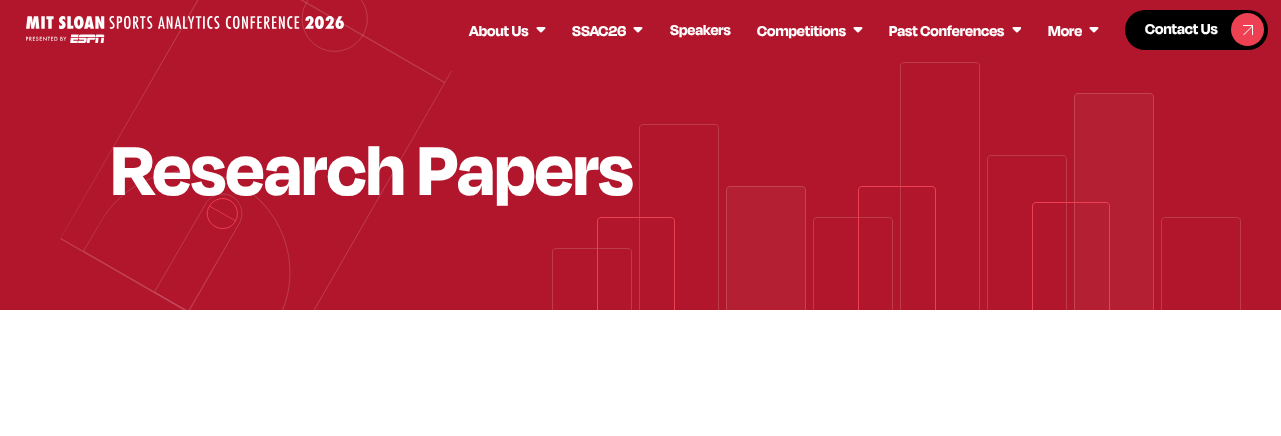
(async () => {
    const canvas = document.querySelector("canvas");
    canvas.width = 1281;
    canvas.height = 436;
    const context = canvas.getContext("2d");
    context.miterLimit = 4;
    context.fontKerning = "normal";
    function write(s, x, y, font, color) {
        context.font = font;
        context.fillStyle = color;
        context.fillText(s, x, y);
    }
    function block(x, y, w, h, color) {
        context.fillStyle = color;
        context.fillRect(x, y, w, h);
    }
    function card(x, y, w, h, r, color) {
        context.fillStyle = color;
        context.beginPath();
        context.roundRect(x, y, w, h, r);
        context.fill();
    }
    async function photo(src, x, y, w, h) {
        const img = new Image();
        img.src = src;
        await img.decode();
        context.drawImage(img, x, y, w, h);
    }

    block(0, 0, 1281, 436, "rgb(255, 255, 255)");
    block(0, 0, 1281, 310, "rgb(178, 22, 44)");
    context.save();
    context.beginPath();
    context.rect(0, 0, 1281, 310);
    context.clip();
    context.fillStyle = "rgb(190, 59, 78)";
    context.beginPath();
    context.moveTo(282, 367);
    context.lineTo(60, 239);
    context.lineTo(61, 238);
    context.lineTo(282, 365);
    context.closePath();
    context.fill();
    context.restore();
    context.fillStyle = "rgb(190, 59, 78)";
    context.beginPath();
    context.moveTo(60, 239);
    context.lineTo(230, -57);
    context.lineTo(231, -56);
    context.lineTo(61, 238);
    context.closePath();
    context.fill();
    context.save();
    context.beginPath();
    context.rect(0, 0, 1281, 310);
    context.clip();
    context.beginPath();
    context.moveTo(452, 71);
    context.lineTo(282, 367);
    context.lineTo(282, 365);
    context.lineTo(451, 71);
    context.closePath();
    context.fill();
    context.restore();
    context.fillStyle = "rgba(255, 255, 255, 0.16)";
    context.beginPath();
    context.moveTo(225, -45);
    context.lineTo(445, 82);
    context.lineTo(444, 83);
    context.lineTo(224, -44);
    context.closePath();
    context.fill();
    context.beginPath();
    context.moveTo(351, -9.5);
    context.bezierCurveTo(366.5, -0.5, 372, 19.5, 363, 35);
    context.bezierCurveTo(354, 50.5, 334, 56, 318.5, 47);
    context.bezierCurveTo(303, 38, 297.5, 18, 306.5, 2.5);
    context.bezierCurveTo(315.5, -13, 335.5, -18.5, 351, -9.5);
    context.closePath();
    context.strokeStyle = "rgba(255, 255, 255, 0.16)";
    context.stroke();
    await photo("media/1.png", 26, 16, 318, 27);
    write("About Us", 469, 36, "bold 16.5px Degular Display", "rgb(255, 255, 255)");
    await photo("media/2.png", 536, 27, 10, 6);
    write("SSAC26", 572, 36, "bold 16.5px Degular Display", "rgb(255, 255, 255)");
    await photo("media/2.png", 633, 27, 10, 6);
    write("Speakers", 670, 35, "bold 16.5px Degular Display", "rgb(255, 255, 255)");
    write("Competitions", 757, 36, "bold 16.5px Degular Display", "rgb(255, 255, 255)");
    await photo("media/2.png", 853, 27, 10, 6);
    write("Past Conferences", 889, 36, "bold 16.5px Degular Display", "rgb(255, 255, 255)");
    await photo("media/3.png", 1012, 27, 9, 6);
    write("More", 1048, 36, "bold 16.5px Degular Display", "rgb(255, 255, 255)");
    await photo("media/2.png", 1089, 27, 10, 6);
    card(1125, 10, 143, 40, 20, "rgb(0, 0, 0)");
    write("Contact Us", 1145, 34, "bold 16.5px Degular Display", "rgb(255, 255, 255)");
    context.fillStyle = "rgb(237, 64, 82)";
    context.beginPath();
    context.arc(1247.5, 29.5, 16.5, 0, Math.PI * 2);
    context.fill();
    block(1243, 25, 10, 1, "rgb(255, 255, 255)");
    block(1252, 25, 1, 10, "rgb(255, 255, 255)");
    context.save();
    context.beginPath();
    context.rect(1243, 26, 9, 9);
    context.clip();
    context.beginPath();
    context.moveTo(1242.5, 35.5);
    context.lineTo(1252, 26);
    context.lineTo(1252.5, 26.5);
    context.lineTo(1243, 36);
    context.closePath();
    context.fill();
    context.restore();
    context.save();
    context.beginPath();
    context.rect(0, 0, 1281, 310);
    context.clip();
    context.fillStyle = "rgba(255, 255, 255, 0.16)";
    context.beginPath();
    context.moveTo(239, 184);
    context.bezierCurveTo(288, 212, 305, 274, 277, 323);
    context.lineTo(260, 353);
    context.lineTo(83, 251);
    context.lineTo(101, 221);
    context.bezierCurveTo(129, 173, 191, 156, 239, 184);
    context.closePath();
    context.moveTo(239, 185);
    context.bezierCurveTo(287, 213, 304, 274, 276, 322);
    context.lineTo(259, 352);
    context.lineTo(84, 251);
    context.lineTo(101, 222);
    context.bezierCurveTo(129, 174, 191, 157, 239, 185);
    context.closePath();
    context.fill("evenodd");
    context.beginPath();
    context.moveTo(232, 196);
    context.bezierCurveTo(242, 202, 245, 214, 240, 223);
    context.lineTo(189, 312);
    context.lineTo(154, 292);
    context.lineTo(205, 204);
    context.bezierCurveTo(211, 194, 223, 191, 232, 196);
    context.closePath();
    context.moveTo(232, 197);
    context.bezierCurveTo(241, 202, 244, 214, 239, 223);
    context.lineTo(188, 311);
    context.lineTo(155, 292);
    context.lineTo(206, 204);
    context.bezierCurveTo(211, 195, 223, 192, 232, 197);
    context.closePath();
    context.fill("evenodd");
    context.restore();
    context.beginPath();
    context.moveTo(230, 200.5);
    context.bezierCurveTo(237, 204.5, 239.5, 214, 235.5, 221);
    context.bezierCurveTo(231.5, 228.5, 222, 230.5, 215, 226.5);
    context.bezierCurveTo(207.5, 222.5, 205, 213, 209.5, 206);
    context.bezierCurveTo(213.5, 199, 222.5, 196.5, 230, 200.5);
    context.closePath();
    context.strokeStyle = "rgb(237, 64, 82)";
    context.stroke();
    context.fillStyle = "rgb(237, 64, 82)";
    context.beginPath();
    context.moveTo(210, 206);
    context.lineTo(235.5, 220.5);
    context.lineTo(235, 221);
    context.lineTo(209.5, 206.5);
    context.closePath();
    context.fill();
    context.fillStyle = "rgb(190, 59, 78)";
    context.beginPath();
    context.moveTo(556, 248);
    context.lineTo(628, 248);
    context.bezierCurveTo(630, 248, 632, 250, 632, 252);
    context.lineTo(632, 310);
    context.lineTo(552, 310);
    context.lineTo(552, 252);
    context.bezierCurveTo(552, 250, 554, 248, 556, 248);
    context.closePath();
    context.moveTo(556, 249);
    context.lineTo(628, 249);
    context.bezierCurveTo(630, 249, 631, 250, 631, 252);
    context.lineTo(631, 310);
    context.lineTo(553, 310);
    context.lineTo(553, 252);
    context.bezierCurveTo(553, 250, 554, 249, 556, 249);
    context.closePath();
    context.fill("evenodd");
    context.beginPath();
    context.moveTo(643, 124);
    context.lineTo(715, 124);
    context.bezierCurveTo(717, 124, 719, 126, 719, 128);
    context.lineTo(719, 310);
    context.lineTo(639, 310);
    context.lineTo(639, 128);
    context.bezierCurveTo(639, 126, 641, 124, 643, 124);
    context.closePath();
    context.moveTo(643, 125);
    context.lineTo(715, 125);
    context.bezierCurveTo(717, 125, 718, 126, 718, 128);
    context.lineTo(718, 310);
    context.lineTo(640, 310);
    context.lineTo(640, 128);
    context.bezierCurveTo(640, 126, 641, 125, 643, 125);
    context.closePath();
    context.fill("evenodd");
    context.fillStyle = "rgb(237, 64, 82)";
    context.beginPath();
    context.moveTo(601, 217);
    context.lineTo(671, 217);
    context.bezierCurveTo(673, 217, 675, 219, 675, 221);
    context.lineTo(675, 310);
    context.lineTo(597, 310);
    context.lineTo(597, 221);
    context.bezierCurveTo(597, 219, 599, 217, 601, 217);
    context.closePath();
    context.moveTo(601, 218);
    context.lineTo(671, 218);
    context.bezierCurveTo(673, 218, 674, 219, 674, 221);
    context.lineTo(674, 310);
    context.lineTo(598, 310);
    context.lineTo(598, 221);
    context.bezierCurveTo(598, 219, 599, 218, 601, 218);
    context.closePath();
    context.fill("evenodd");
    context.fillStyle = "rgb(181, 31, 52)";
    context.beginPath();
    context.roundRect(726, 186, 80, 124, [4, 4, 0, 0]);
    context.fill();
    context.fillStyle = "rgba(255, 255, 255, 0.16)";
    context.beginPath();
    context.moveTo(730, 186);
    context.lineTo(802, 186);
    context.bezierCurveTo(804, 186, 806, 188, 806, 190);
    context.lineTo(806, 310);
    context.lineTo(726, 310);
    context.lineTo(726, 190);
    context.bezierCurveTo(726, 188, 728, 186, 730, 186);
    context.closePath();
    context.moveTo(730, 187);
    context.lineTo(802, 187);
    context.bezierCurveTo(804, 187, 805, 188, 805, 190);
    context.lineTo(805, 310);
    context.lineTo(727, 310);
    context.lineTo(727, 190);
    context.bezierCurveTo(727, 188, 728, 187, 730, 187);
    context.closePath();
    context.fill("evenodd");
    context.fillStyle = "rgb(190, 59, 78)";
    context.beginPath();
    context.moveTo(817, 217);
    context.lineTo(889, 217);
    context.bezierCurveTo(891, 217, 893, 219, 893, 221);
    context.lineTo(893, 310);
    context.lineTo(813, 310);
    context.lineTo(813, 221);
    context.bezierCurveTo(813, 219, 815, 217, 817, 217);
    context.closePath();
    context.moveTo(817, 218);
    context.lineTo(889, 218);
    context.bezierCurveTo(891, 218, 892, 219, 892, 221);
    context.lineTo(892, 310);
    context.lineTo(814, 310);
    context.lineTo(814, 221);
    context.bezierCurveTo(814, 219, 815, 218, 817, 218);
    context.closePath();
    context.fill("evenodd");
    context.beginPath();
    context.moveTo(904, 62);
    context.lineTo(976, 62);
    context.bezierCurveTo(978, 62, 980, 64, 980, 66);
    context.lineTo(980, 310);
    context.lineTo(900, 310);
    context.lineTo(900, 66);
    context.bezierCurveTo(900, 64, 902, 62, 904, 62);
    context.closePath();
    context.moveTo(904, 63);
    context.lineTo(976, 63);
    context.bezierCurveTo(978, 63, 979, 64, 979, 66);
    context.lineTo(979, 310);
    context.lineTo(901, 310);
    context.lineTo(901, 66);
    context.bezierCurveTo(901, 64, 902, 63, 904, 63);
    context.closePath();
    context.fill("evenodd");
    context.fillStyle = "rgb(237, 64, 82)";
    context.beginPath();
    context.moveTo(862, 186);
    context.lineTo(932, 186);
    context.bezierCurveTo(934, 186, 936, 188, 936, 190);
    context.lineTo(936, 310);
    context.lineTo(858, 310);
    context.lineTo(858, 190);
    context.bezierCurveTo(858, 188, 860, 186, 862, 186);
    context.closePath();
    context.moveTo(862, 187);
    context.lineTo(932, 187);
    context.bezierCurveTo(934, 187, 935, 188, 935, 190);
    context.lineTo(935, 310);
    context.lineTo(859, 310);
    context.lineTo(859, 190);
    context.bezierCurveTo(859, 188, 860, 187, 862, 187);
    context.closePath();
    context.fill("evenodd");
    context.fillStyle = "rgb(190, 59, 78)";
    context.beginPath();
    context.moveTo(991, 155);
    context.lineTo(1063, 155);
    context.bezierCurveTo(1065, 155, 1067, 157, 1067, 159);
    context.lineTo(1067, 310);
    context.lineTo(987, 310);
    context.lineTo(987, 159);
    context.bezierCurveTo(987, 157, 989, 155, 991, 155);
    context.closePath();
    context.moveTo(991, 156);
    context.lineTo(1063, 156);
    context.bezierCurveTo(1065, 156, 1066, 157, 1066, 159);
    context.lineTo(1066, 310);
    context.lineTo(988, 310);
    context.lineTo(988, 159);
    context.bezierCurveTo(988, 157, 989, 156, 991, 156);
    context.closePath();
    context.fill("evenodd");
    context.fillStyle = "rgb(181, 31, 52)";
    context.beginPath();
    context.roundRect(1074, 93, 80, 217, [4, 4, 0, 0]);
    context.fill();
    context.fillStyle = "rgba(255, 255, 255, 0.16)";
    context.beginPath();
    context.moveTo(1078, 93);
    context.lineTo(1150, 93);
    context.bezierCurveTo(1152, 93, 1154, 95, 1154, 97);
    context.lineTo(1154, 310);
    context.lineTo(1074, 310);
    context.lineTo(1074, 97);
    context.bezierCurveTo(1074, 95, 1076, 93, 1078, 93);
    context.closePath();
    context.moveTo(1078, 94);
    context.lineTo(1150, 94);
    context.bezierCurveTo(1152, 94, 1153, 95, 1153, 97);
    context.lineTo(1153, 310);
    context.lineTo(1075, 310);
    context.lineTo(1075, 97);
    context.bezierCurveTo(1075, 95, 1076, 94, 1078, 94);
    context.closePath();
    context.fill("evenodd");
    context.fillStyle = "rgb(237, 64, 82)";
    context.beginPath();
    context.moveTo(1036, 202);
    context.lineTo(1106, 202);
    context.bezierCurveTo(1108, 202, 1110, 204, 1110, 206);
    context.lineTo(1110, 310);
    context.lineTo(1032, 310);
    context.lineTo(1032, 206);
    context.bezierCurveTo(1032, 204, 1034, 202, 1036, 202);
    context.closePath();
    context.moveTo(1036, 203);
    context.lineTo(1106, 203);
    context.bezierCurveTo(1108, 203, 1109, 204, 1109, 206);
    context.lineTo(1109, 310);
    context.lineTo(1033, 310);
    context.lineTo(1033, 206);
    context.bezierCurveTo(1033, 204, 1034, 203, 1036, 203);
    context.closePath();
    context.fill("evenodd");
    context.fillStyle = "rgb(190, 59, 78)";
    context.beginPath();
    context.moveTo(1165, 217);
    context.lineTo(1237, 217);
    context.bezierCurveTo(1239, 217, 1241, 219, 1241, 221);
    context.lineTo(1241, 310);
    context.lineTo(1161, 310);
    context.lineTo(1161, 221);
    context.bezierCurveTo(1161, 219, 1163, 217, 1165, 217);
    context.closePath();
    context.moveTo(1165, 218);
    context.lineTo(1237, 218);
    context.bezierCurveTo(1239, 218, 1240, 219, 1240, 221);
    context.lineTo(1240, 310);
    context.lineTo(1162, 310);
    context.lineTo(1162, 221);
    context.bezierCurveTo(1162, 219, 1163, 218, 1165, 218);
    context.closePath();
    context.fill("evenodd");
    write("Research Papers", 111, 195, "bold 79.5px Degular Display", "rgb(255, 255, 255)");
})();
